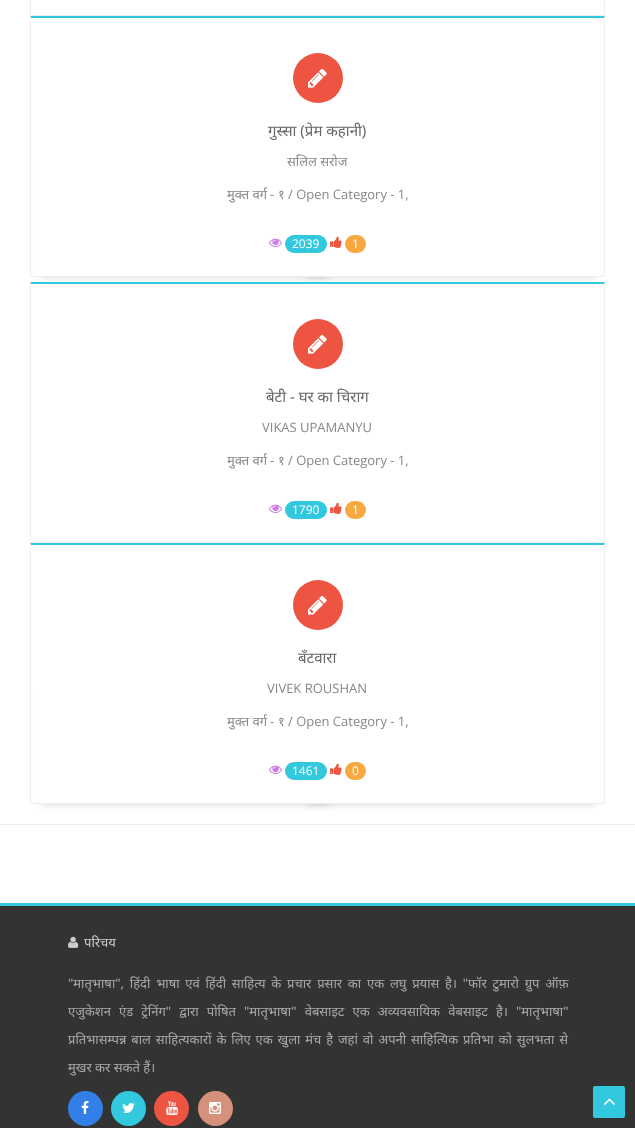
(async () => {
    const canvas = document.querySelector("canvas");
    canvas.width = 635;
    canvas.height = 1128;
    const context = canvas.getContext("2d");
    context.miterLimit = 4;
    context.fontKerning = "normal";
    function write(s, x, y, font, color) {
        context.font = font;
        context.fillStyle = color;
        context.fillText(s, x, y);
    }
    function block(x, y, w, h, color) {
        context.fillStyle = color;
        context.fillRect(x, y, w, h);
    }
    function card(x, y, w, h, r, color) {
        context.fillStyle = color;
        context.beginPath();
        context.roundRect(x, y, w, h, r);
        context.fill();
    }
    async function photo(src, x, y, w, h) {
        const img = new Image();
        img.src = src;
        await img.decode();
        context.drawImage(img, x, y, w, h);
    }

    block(0, 0, 635, 1128, "rgb(255, 255, 255)");
    context.fillStyle = "rgb(238, 238, 238)";
    context.beginPath();
    context.moveTo(605, -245);
    context.lineTo(605, 16);
    context.lineTo(604, 15);
    context.lineTo(604, -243);
    context.closePath();
    context.fill();
    block(30, 15, 575, 1, "rgb(238, 238, 238)");
    context.beginPath();
    context.moveTo(30, 16);
    context.lineTo(30, -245);
    context.lineTo(31, -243);
    context.lineTo(31, 15);
    context.closePath();
    context.fill();
    context.fillStyle = "rgba(0, 0, 0, 0.2)";
    context.filter = "blur(5px)";
    context.beginPath();
    context.rect(41, 162, 287, 114);
    context.fill();
    context.filter = "none";
    context.filter = "blur(5px)";
    context.beginPath();
    context.rect(308, 162, 286, 114);
    context.fill();
    context.filter = "none";
    block(33, 152, 569, 124, "rgb(255, 255, 255)");
    context.fillStyle = "rgb(50, 200, 222)";
    context.beginPath();
    context.moveTo(30, 16);
    context.lineTo(605, 16);
    context.lineTo(604, 18);
    context.lineTo(31, 18);
    context.closePath();
    context.fill();
    context.fillStyle = "rgb(238, 238, 238)";
    context.beginPath();
    context.moveTo(605, 16);
    context.lineTo(605, 277);
    context.lineTo(604, 276);
    context.lineTo(604, 18);
    context.closePath();
    context.fill();
    block(30, 276, 575, 1, "rgb(238, 238, 238)");
    context.beginPath();
    context.moveTo(30, 277);
    context.lineTo(30, 16);
    context.lineTo(31, 18);
    context.lineTo(31, 276);
    context.closePath();
    context.fill();
    context.fillStyle = "rgb(237, 84, 65)";
    context.beginPath();
    context.arc(318, 78, 25, 0, Math.PI * 2);
    context.fill();
    await photo("media/1.png", 308, 69, 19, 19);
    write("गुस्सा (प्रेम कहानी)", 268, 136, "15px Noto Sans", "rgb(102, 102, 102)");
    write("सलिल सरोज", 287, 166, "13px Noto Sans", "rgb(136, 136, 136)");
    write("मुक्त वर्ग", 227, 199, "13px Noto Sans", "rgb(136, 136, 136)");
    write("-", 270, 199, "13px Open Sans", "rgb(136, 136, 136)");
    write("१", 278, 199, "13px Noto Sans", "rgb(136, 136, 136)");
    write("/ Open Category - 1,", 288, 199, "13px Open Sans", "rgb(136, 136, 136)");
    await photo("media/2.png", 269, 238, 13, 9);
    card(285, 235, 42, 18, 9, "rgb(50, 200, 222)");
    write("2039", 292, 248, "12px Open Sans", "rgb(255, 255, 255)");
    await photo("media/3.png", 330, 236, 12, 12);
    card(345, 235, 21, 18, 9, "rgb(248, 168, 65)");
    write("1", 352, 248, "12px Open Sans", "rgb(255, 255, 255)");
    block(303, 284, 30, 2, "rgb(255, 255, 255)");
    context.fillStyle = "rgb(50, 200, 222)";
    context.beginPath();
    context.moveTo(30, 282);
    context.lineTo(605, 282);
    context.lineTo(604, 284);
    context.lineTo(31, 284);
    context.closePath();
    context.fill();
    context.fillStyle = "rgb(238, 238, 238)";
    context.beginPath();
    context.moveTo(605, 282);
    context.lineTo(605, 543);
    context.lineTo(604, 542);
    context.lineTo(604, 284);
    context.closePath();
    context.fill();
    block(30, 542, 575, 1, "rgb(238, 238, 238)");
    context.beginPath();
    context.moveTo(30, 543);
    context.lineTo(30, 282);
    context.lineTo(31, 284);
    context.lineTo(31, 542);
    context.closePath();
    context.fill();
    context.fillStyle = "rgb(237, 84, 65)";
    context.beginPath();
    context.arc(318, 344, 25, 0, Math.PI * 2);
    context.fill();
    await photo("media/1.png", 308, 335, 19, 19);
    write("बेटी - घर का चिराग", 266, 402, "15px Noto Sans", "rgb(102, 102, 102)");
    write("VIKAS UPAMANYU", 262, 432, "13px Open Sans", "rgb(136, 136, 136)");
    write("मुक्त वर्ग", 227, 465, "13px Noto Sans", "rgb(136, 136, 136)");
    write("-", 270, 465, "13px Open Sans", "rgb(136, 136, 136)");
    write("१", 278, 465, "13px Noto Sans", "rgb(136, 136, 136)");
    write("/ Open Category - 1,", 288, 465, "13px Open Sans", "rgb(136, 136, 136)");
    await photo("media/2.png", 269, 504, 13, 9);
    card(285, 501, 42, 18, 9, "rgb(50, 200, 222)");
    write("1790", 292, 514, "12px Open Sans", "rgb(255, 255, 255)");
    await photo("media/3.png", 330, 502, 12, 12);
    card(345, 501, 21, 18, 9, "rgb(248, 168, 65)");
    write("1", 352, 514, "12px Open Sans", "rgb(255, 255, 255)");
    context.fillStyle = "rgba(0, 0, 0, 0.2)";
    context.filter = "blur(5px)";
    context.beginPath();
    context.rect(41, 689, 287, 114);
    context.fill();
    context.filter = "none";
    context.filter = "blur(5px)";
    context.beginPath();
    context.rect(308, 689, 286, 114);
    context.fill();
    context.filter = "none";
    block(33, 679, 569, 124, "rgb(255, 255, 255)");
    context.fillStyle = "rgb(50, 200, 222)";
    context.beginPath();
    context.moveTo(30, 543);
    context.lineTo(605, 543);
    context.lineTo(604, 545);
    context.lineTo(31, 545);
    context.closePath();
    context.fill();
    context.fillStyle = "rgb(238, 238, 238)";
    context.beginPath();
    context.moveTo(605, 543);
    context.lineTo(605, 804);
    context.lineTo(604, 803);
    context.lineTo(604, 545);
    context.closePath();
    context.fill();
    block(30, 803, 575, 1, "rgb(238, 238, 238)");
    context.beginPath();
    context.moveTo(30, 804);
    context.lineTo(30, 543);
    context.lineTo(31, 545);
    context.lineTo(31, 803);
    context.closePath();
    context.fill();
    context.fillStyle = "rgb(237, 84, 65)";
    context.beginPath();
    context.arc(318, 605, 25, 0, Math.PI * 2);
    context.fill();
    await photo("media/1.png", 308, 596, 19, 19);
    write("बँटवारा", 298, 663, "15px Noto Sans", "rgb(102, 102, 102)");
    write("VIVEK ROUSHAN", 267, 693, "13px Open Sans", "rgb(136, 136, 136)");
    write("मुक्त वर्ग", 227, 726, "13px Noto Sans", "rgb(136, 136, 136)");
    write("-", 270, 726, "13px Open Sans", "rgb(136, 136, 136)");
    write("१", 278, 726, "13px Noto Sans", "rgb(136, 136, 136)");
    write("/ Open Category - 1,", 288, 726, "13px Open Sans", "rgb(136, 136, 136)");
    await photo("media/2.png", 269, 765, 13, 9);
    card(285, 762, 42, 18, 9, "rgb(50, 200, 222)");
    write("1461", 292, 775, "12px Open Sans", "rgb(255, 255, 255)");
    await photo("media/3.png", 330, 763, 12, 12);
    card(345, 762, 21, 18, 9, "rgb(248, 168, 65)");
    write("0", 352, 775, "12px Open Sans", "rgb(255, 255, 255)");
    block(0, 824, 635, 1, "rgb(238, 238, 238)");
    block(0, 906, 635, 222, "rgb(51, 51, 51)");
    block(0, 903, 635, 3, "rgb(50, 200, 222)");
    await photo("media/4.png", 68, 936, 11, 12);
    write("परिचय", 84, 947, "13px Noto Sans", "rgb(204, 204, 204)");
    context.wordSpacing = "2.4px";
    write("\"मातृभाषा\", हिंदी भाषा एवं हिंदी साहित्य के प्रचार प्रसार का एक लघु प्रयास है। \"फॉर टुमारो ग्रुप ऑफ़", 68, 988, "13px Noto Sans", "rgb(170, 170, 170)");
    context.wordSpacing = "4.75px";
    write("एजुकेशन एंड ट्रेनिंग\" द्वारा पोषित \"मातृभाषा\" वेबसाइट एक अव्यवसायिक वेबसाइट है। \"मातृभाषा\"", 68, 1016, "13px Noto Sans", "rgb(170, 170, 170)");
    context.wordSpacing = "1.5px";
    write("प्रतिभासम्पन्न बाल साहित्यकारों के लिए एक खुला मंच है जहां वो अपनी साहित्यिक प्रतिभा को सुलभता से", 68, 1044, "13px Noto Sans", "rgb(170, 170, 170)");
    context.wordSpacing = "0px";
    write("मुखर कर सकते हैं।", 68, 1072, "13px Noto Sans", "rgb(170, 170, 170)");
    context.fillStyle = "rgb(50, 128, 231)";
    context.beginPath();
    context.arc(85.5, 1108.5, 17.5, 0, Math.PI * 2);
    context.fill();
    await photo("media/5.png", 81, 1101, 8, 13);
    context.fillStyle = "rgb(50, 200, 222)";
    context.beginPath();
    context.arc(128.5, 1108.5, 17.5, 0, Math.PI * 2);
    context.fill();
    await photo("media/6.png", 122, 1103, 13, 10);
    context.fillStyle = "rgb(237, 84, 65)";
    context.beginPath();
    context.arc(171.5, 1108.5, 17.5, 0, Math.PI * 2);
    context.fill();
    await photo("media/7.png", 166, 1101, 12, 14);
    context.fillStyle = "rgb(214, 145, 122)";
    context.beginPath();
    context.arc(215.5, 1108.5, 17.5, 0, Math.PI * 2);
    context.fill();
    await photo("media/8.png", 209, 1102, 12, 12);
    card(593, 1086, 32, 32, 2, "rgb(50, 200, 222)");
    await photo("media/9.png", 603, 1098, 12, 7);
})();
